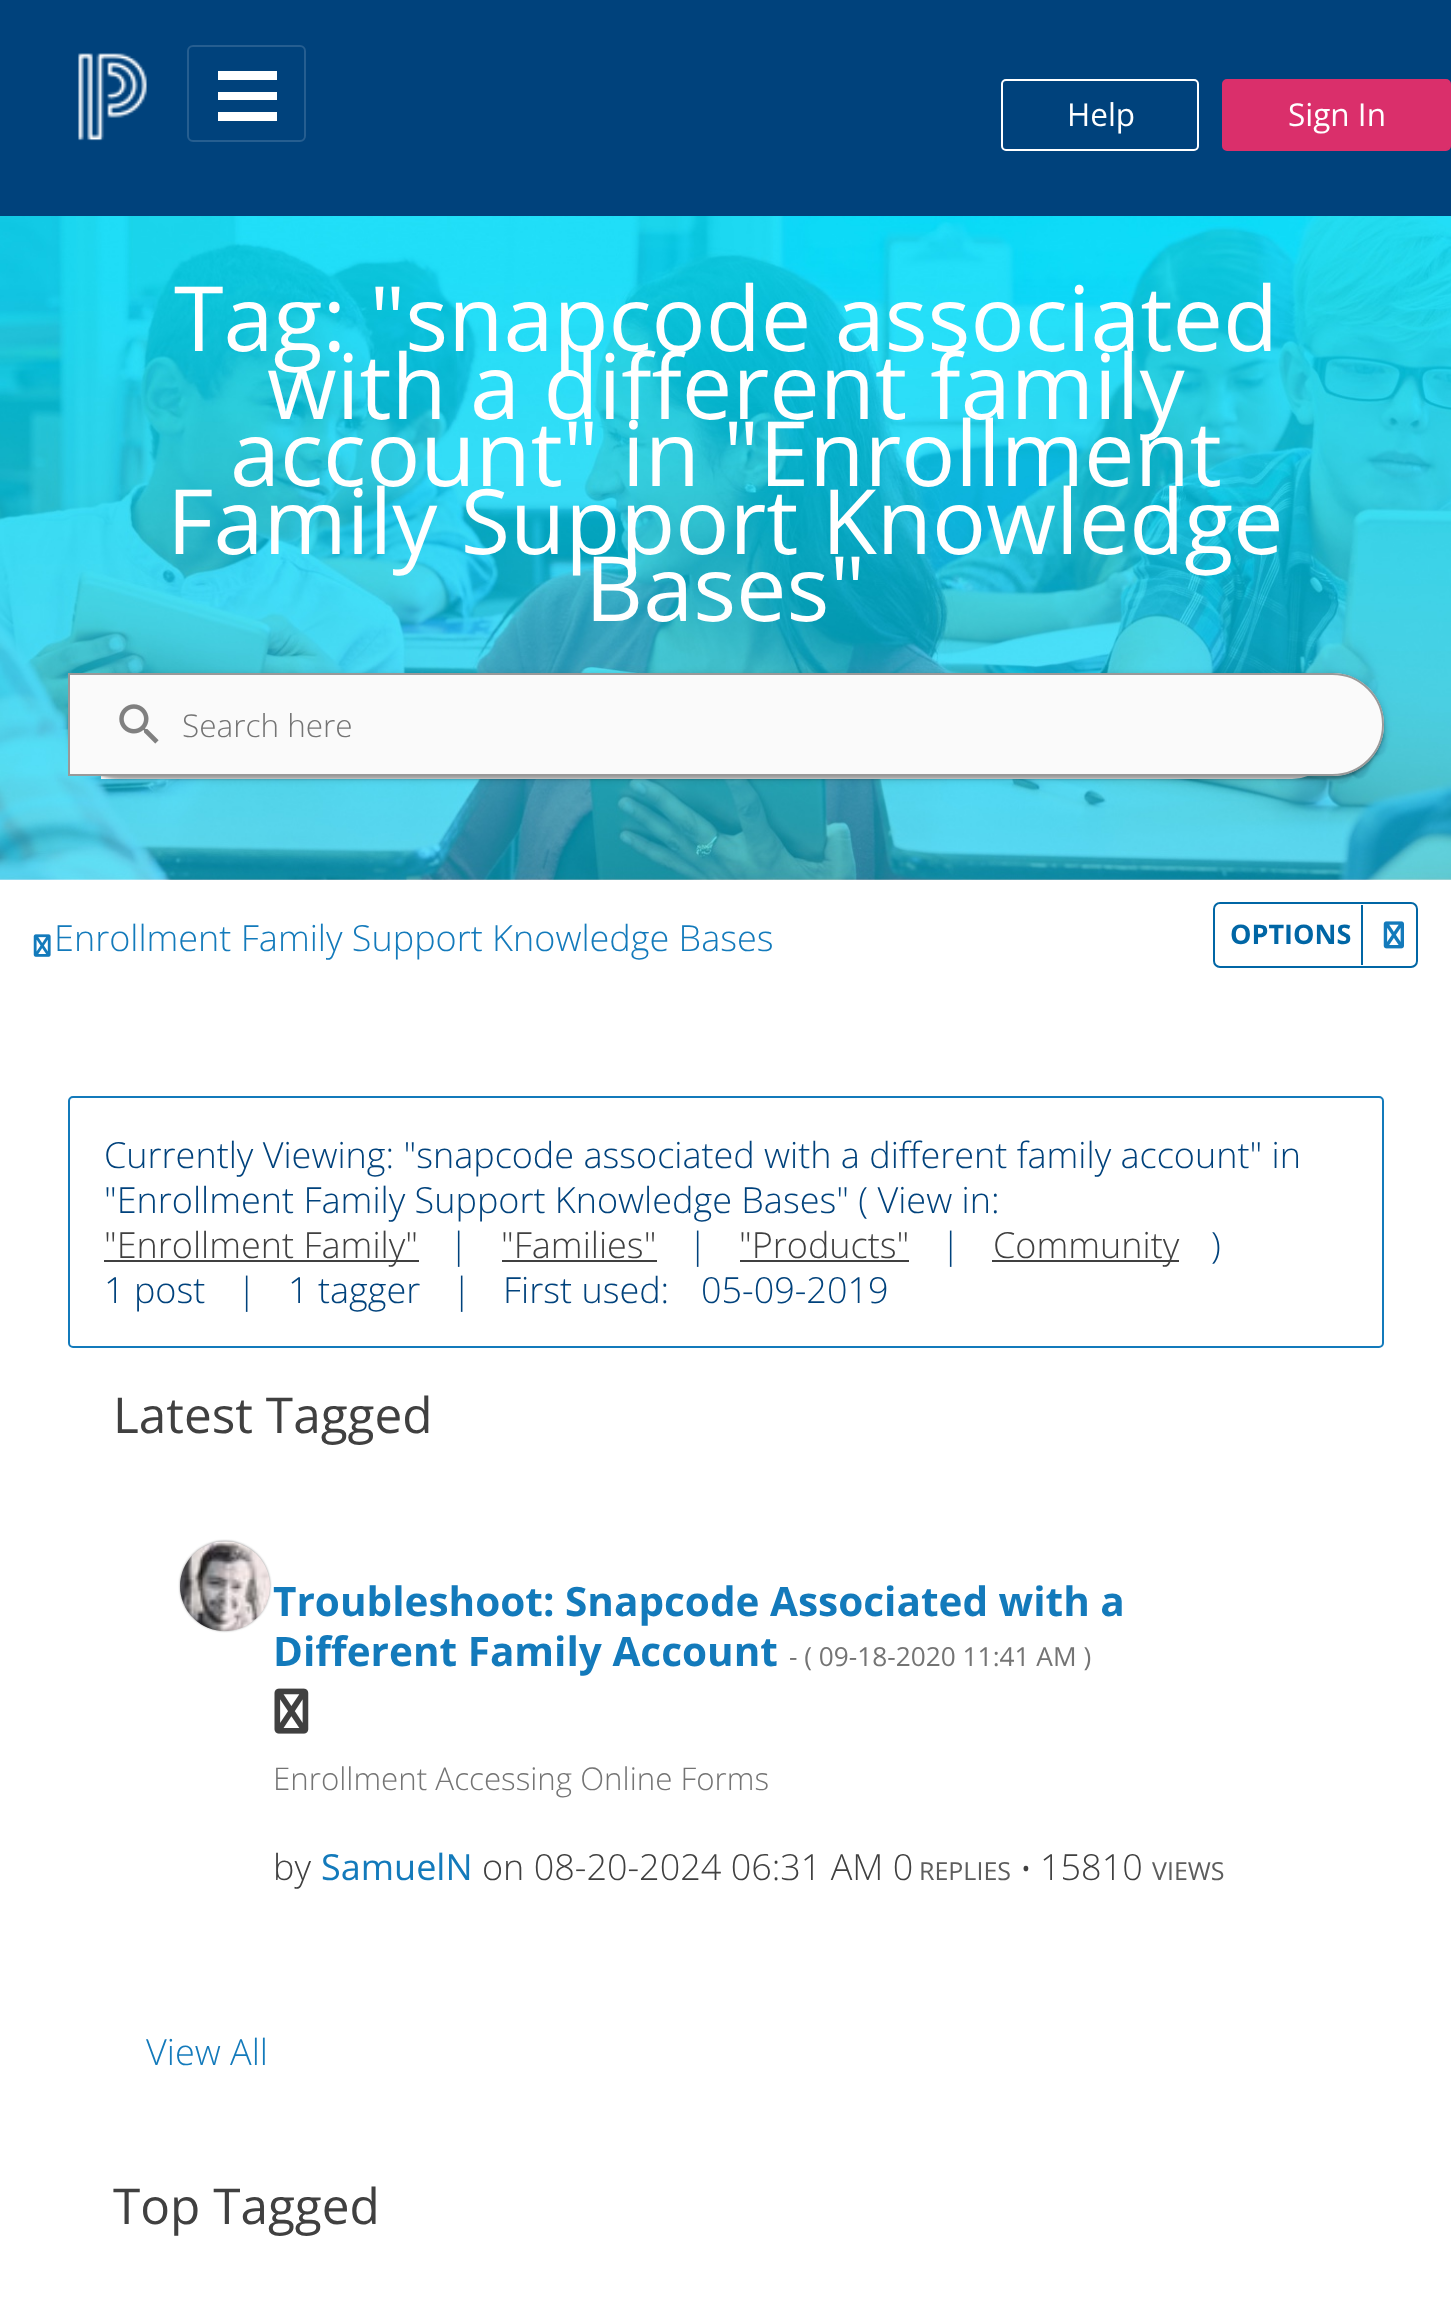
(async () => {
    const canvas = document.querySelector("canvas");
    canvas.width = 1451;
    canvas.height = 2307;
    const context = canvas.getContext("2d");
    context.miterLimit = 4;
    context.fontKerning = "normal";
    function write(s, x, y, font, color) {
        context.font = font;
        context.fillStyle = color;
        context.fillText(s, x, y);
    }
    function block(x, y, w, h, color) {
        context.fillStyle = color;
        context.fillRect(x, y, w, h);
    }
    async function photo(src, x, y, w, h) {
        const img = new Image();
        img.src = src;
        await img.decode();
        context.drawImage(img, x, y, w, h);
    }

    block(0, 0, 1451, 2307, "rgb(255, 255, 255)");
    block(0, 0, 1451, 216, "rgb(0, 66, 124)");
    await photo("media/1.png", 78, 53, 69, 88);
    context.beginPath();
    context.roundRect(188, 46, 117, 95, 5);
    context.strokeStyle = "rgb(38, 94, 144)";
    context.lineWidth = 2;
    context.stroke();
    context.fillStyle = "rgb(255, 255, 255)";
    context.beginPath();
    context.moveTo(218, 71);
    context.lineTo(277, 71);
    context.lineTo(277, 80);
    context.lineTo(218, 80);
    context.closePath();
    context.moveTo(218, 92);
    context.lineTo(277, 92);
    context.lineTo(277, 100);
    context.lineTo(218, 100);
    context.closePath();
    context.moveTo(218, 112);
    context.lineTo(277, 112);
    context.lineTo(277, 121);
    context.lineTo(218, 121);
    context.closePath();
    context.fill("evenodd");
    context.beginPath();
    context.roundRect(1002, 80, 196, 70, 4);
    context.strokeStyle = "rgb(255, 255, 255)";
    context.stroke();
    write("Help", 1067, 126, "31.5px Open Sans", "rgb(255, 255, 255)");
    context.fillStyle = "rgb(218, 47, 107)";
    context.beginPath();
    context.roundRect(1223, 80, 227, 70, 4);
    context.fill();
    context.strokeStyle = "rgb(218, 47, 107)";
    context.stroke();
    write("Sign In", 1288, 126, "31.5px Open Sans", "rgb(255, 255, 255)");
    await photo("media/2.png", 0, 216, 1451, 664);
    write("Tag: \"snapcode associated", 174, 351, "90px Open Sans", "rgb(255, 255, 255)");
    write("with a different family", 267, 419, "90px Open Sans", "rgb(255, 255, 255)");
    write("account\" in \"Enrollment", 230, 486, "90px Open Sans", "rgb(255, 255, 255)");
    write("Family Support Knowledge", 167, 554, "90px Open Sans", "rgb(255, 255, 255)");
    write("Bases\"", 585, 621, "90px Open Sans", "rgb(255, 255, 255)");
    context.beginPath();
    context.roundRect(101, 677, 1236, 102, [0, 45, 45, 0]);
    context.fill();
    context.fillStyle = "rgb(250, 250, 250)";
    context.beginPath();
    context.roundRect(68, 673, 1316, 103, [0, 51.5, 51.5, 0]);
    context.fill();
    context.save();
    context.beginPath();
    context.moveTo(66, 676);
    context.lineTo(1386, 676);
    context.lineTo(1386, 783);
    context.lineTo(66, 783);
    context.closePath();
    context.moveTo(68, 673);
    context.lineTo(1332.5, 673);
    context.bezierCurveTo(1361, 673, 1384, 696, 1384, 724.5);
    context.bezierCurveTo(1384, 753, 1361, 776, 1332.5, 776);
    context.lineTo(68, 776);
    context.closePath();
    context.clip("evenodd");
    context.fillStyle = "rgba(0, 0, 0, 0.12)";
    context.filter = "blur(1px)";
    context.beginPath();
    context.roundRect(70, 680, 1312, 99, 49.5);
    context.fill();
    context.filter = "none";
    context.restore();
    context.save();
    context.beginPath();
    context.moveTo(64, 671);
    context.lineTo(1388, 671);
    context.lineTo(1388, 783);
    context.lineTo(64, 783);
    context.closePath();
    context.moveTo(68, 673);
    context.lineTo(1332.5, 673);
    context.bezierCurveTo(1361, 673, 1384, 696, 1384, 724.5);
    context.bezierCurveTo(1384, 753, 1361, 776, 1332.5, 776);
    context.lineTo(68, 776);
    context.closePath();
    context.clip("evenodd");
    context.fillStyle = "rgba(0, 0, 0, 0.14)";
    context.filter = "blur(1px)";
    context.beginPath();
    context.roundRect(68, 675, 1316, 104, 52);
    context.fill();
    context.filter = "none";
    context.restore();
    context.save();
    context.beginPath();
    context.moveTo(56, 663);
    context.lineTo(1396, 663);
    context.lineTo(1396, 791);
    context.lineTo(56, 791);
    context.closePath();
    context.moveTo(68, 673);
    context.lineTo(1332.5, 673);
    context.bezierCurveTo(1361, 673, 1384, 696, 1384, 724.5);
    context.bezierCurveTo(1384, 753, 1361, 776, 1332.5, 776);
    context.lineTo(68, 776);
    context.closePath();
    context.clip("evenodd");
    context.fillStyle = "rgba(0, 0, 0, 0.2)";
    context.filter = "blur(3.5px)";
    context.beginPath();
    context.roundRect(68, 675, 1316, 104, 52);
    context.fill();
    context.filter = "none";
    context.restore();
    context.beginPath();
    context.roundRect(69, 674, 1314, 101, [0, 50.5, 50.5, 0]);
    context.strokeStyle = "rgb(153, 153, 153)";
    context.stroke();
    await photo("media/3.png", 119, 704, 40, 40);
    write("Search here", 182, 737, "300 31.5px Open Sans", "rgb(116, 116, 116)");
    await photo("media/4.png", 33, 934, 18, 23);
    write("Enrollment Family Support Knowledge Bases", 54, 951, "300 36px Open Sans", "rgb(19, 122, 187)");
    context.beginPath();
    context.roundRect(1214, 903, 203, 64, 6);
    context.strokeStyle = "rgb(0, 102, 165)";
    context.stroke();
    write("OPTIONS", 1230, 944, "bold 27px Open Sans", "rgb(0, 102, 165)");
    block(1361, 905, 2, 60, "rgb(0, 102, 165)");
    await photo("media/5.png", 1383, 921, 21, 28);
    context.beginPath();
    context.roundRect(69, 1097, 1314, 250, 4);
    context.strokeStyle = "rgb(19, 122, 187)";
    context.stroke();
    write("Currently Viewing: \"snapcode associated with a different family account\" in", 104, 1168, "300 36px Open Sans", "rgb(0, 66, 124)");
    write("\"Enrollment Family Support Knowledge Bases\" ( View in:", 104, 1213, "300 36px Open Sans", "rgb(0, 66, 124)");
    block(104, 1260, 315, 2, "rgb(64, 64, 64)");
    write("\"Enrollment Family\"", 104, 1258, "300 36px Open Sans", "rgb(64, 64, 64)");
    write("|", 449, 1258, "300 36px Open Sans", "rgb(0, 66, 124)");
    write("\"Families\"", 501, 1258, "300 36px Open Sans", "rgb(64, 64, 64)");
    block(502, 1260, 155, 2, "rgb(64, 64, 64)");
    write("|", 688, 1258, "300 36px Open Sans", "rgb(0, 66, 124)");
    write("\"Products\"", 739, 1258, "300 36px Open Sans", "rgb(64, 64, 64)");
    block(740, 1260, 169, 2, "rgb(64, 64, 64)");
    write("|", 941, 1258, "300 36px Open Sans", "rgb(0, 66, 124)");
    block(992, 1260, 187, 2, "rgb(64, 64, 64)");
    write("Community", 993, 1258, "300 36px Open Sans", "rgb(64, 64, 64)");
    write(")", 1211, 1258, "300 36px Open Sans", "rgb(0, 66, 124)");
    write("1 post", 104, 1303, "300 36px Open Sans", "rgb(0, 66, 124)");
    write("|", 237, 1303, "300 36px Open Sans", "rgb(0, 66, 124)");
    write("1 tagger", 288, 1303, "300 36px Open Sans", "rgb(0, 66, 124)");
    write("|", 452, 1303, "300 36px Open Sans", "rgb(0, 66, 124)");
    write("First used:", 503, 1303, "300 36px Open Sans", "rgb(0, 66, 124)");
    write("05-09-2019", 701, 1303, "300 36px Open Sans", "rgb(0, 66, 124)");
    write("Latest Tagged", 113, 1433, "49.5px Open Sans", "rgb(64, 64, 64)");
    context.fillStyle = "rgb(153, 153, 153)";
    context.filter = "blur(1px)";
    context.beginPath();
    context.roundRect(180, 1541, 90, 90, 45);
    context.fill();
    context.filter = "none";
    await photo("media/6.png", 180, 1541, 90, 90);
    write("Troubleshoot: Snapcode Associated with a", 273, 1616, "bold 40.5px Open Sans", "rgb(19, 122, 187)");
    write("Different Family Account", 273, 1666, "bold 40.5px Open Sans", "rgb(19, 122, 187)");
    write("- ( 09-18-2020 11:41 AM )", 789, 1666, "26.25px Open Sans", "rgb(116, 116, 116)");
    await photo("media/7.png", 274, 1688, 35, 46);
    write("Enrollment Accessing Online Forms", 273, 1790, "300 31.3px Open Sans", "rgb(116, 116, 116)");
    write("by", 273, 1880, "300 36px Open Sans", "rgb(64, 64, 64)");
    write("SamuelN", 321, 1880, "36px Open Sans", "rgb(19, 122, 187)");
    write("on 08-20-2024 06:31 AM 0", 482, 1880, "300 36px Open Sans", "rgb(64, 64, 64)");
    write("REPLIES", 919, 1880, "25px Open Sans", "rgb(93, 93, 93)");
    write("•", 1020, 1880, "300 31.5px Open Sans", "rgb(64, 64, 64)");
    write("15810", 1040, 1880, "300 36px Open Sans", "rgb(64, 64, 64)");
    write("VIEWS", 1152, 1880, "25px Open Sans", "rgb(93, 93, 93)");
    write("View All", 146, 2065, "300 36px Open Sans", "rgb(19, 122, 187)");
    write("Top Tagged", 113, 2224, "49.5px Open Sans", "rgb(64, 64, 64)");
})();
